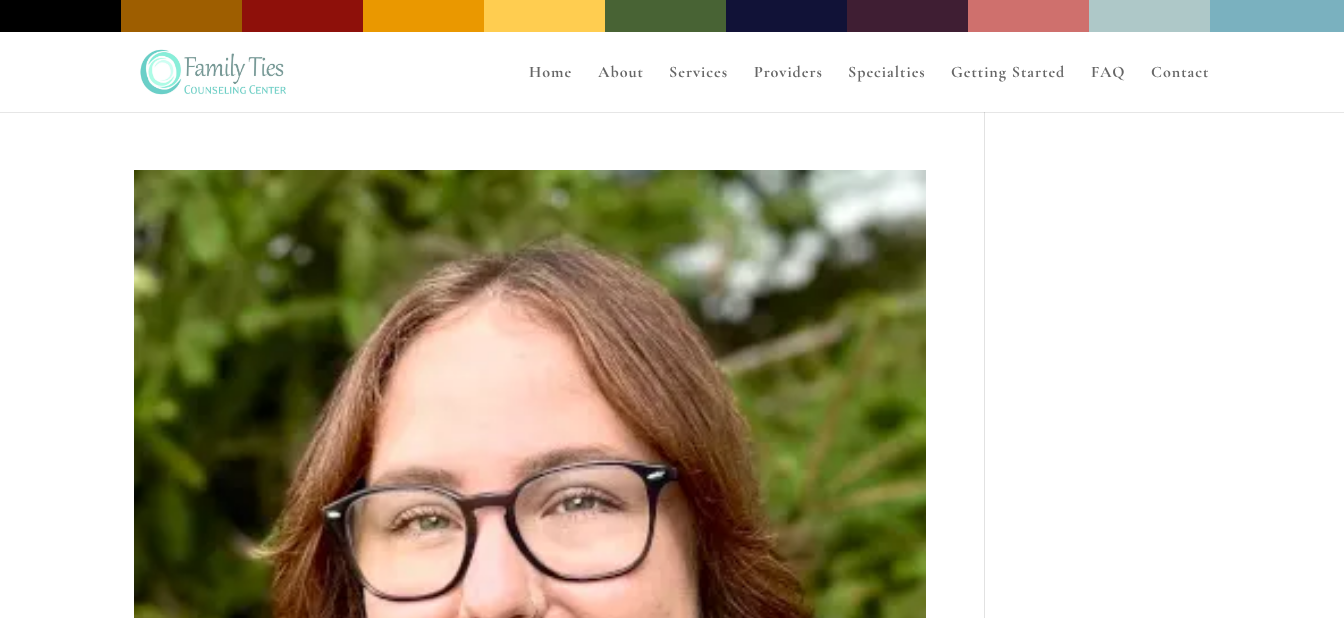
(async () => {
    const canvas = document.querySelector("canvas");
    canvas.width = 1344;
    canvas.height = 618;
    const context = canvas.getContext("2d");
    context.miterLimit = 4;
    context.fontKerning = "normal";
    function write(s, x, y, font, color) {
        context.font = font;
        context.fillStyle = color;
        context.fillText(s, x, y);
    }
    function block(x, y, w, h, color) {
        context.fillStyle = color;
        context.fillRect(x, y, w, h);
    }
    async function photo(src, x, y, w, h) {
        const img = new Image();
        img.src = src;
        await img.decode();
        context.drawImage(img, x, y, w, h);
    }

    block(0, 0, 1344, 618, "rgb(255, 255, 255)");
    block(0, 112, 1344, 1, "rgb(230, 230, 230)");
    block(1210, 0, 134, 32, "rgb(122, 177, 191)");
    block(847, 0, 121, 32, "rgb(63, 30, 51)");
    block(968, 0, 121, 32, "rgb(207, 112, 109)");
    block(1089, 0, 121, 32, "rgb(174, 200, 200)");
    block(0, 0, 121, 32, "rgb(0, 0, 0)");
    block(121, 0, 121, 32, "rgb(158, 94, 0)");
    block(242, 0, 121, 32, "rgb(142, 16, 10)");
    block(363, 0, 121, 32, "rgb(234, 152, 0)");
    block(484, 0, 121, 32, "rgb(255, 205, 80)");
    block(605, 0, 121, 32, "rgb(72, 99, 52)");
    block(726, 0, 121, 32, "rgb(17, 18, 55)");
    await photo("media/1.png", 140, 49, 146, 46);
    context.letterSpacing = "1px";
    write("Home", 529, 77, "300 16px Cormorant Garamond", "rgb(102, 102, 102)");
    write("About", 598, 77, "300 16px Cormorant Garamond", "rgb(102, 102, 102)");
    write("Services", 669, 77, "300 16px Cormorant Garamond", "rgb(102, 102, 102)");
    write("Providers", 754, 77, "300 16px Cormorant Garamond", "rgb(102, 102, 102)");
    write("Specialties", 848, 77, "300 16px Cormorant Garamond", "rgb(102, 102, 102)");
    write("Getting Started", 951, 77, "300 16px Cormorant Garamond", "rgb(102, 102, 102)");
    write("FAQ", 1091, 77, "300 16px Cormorant Garamond", "rgb(102, 102, 102)");
    write("Contact", 1151, 77, "300 16px Cormorant Garamond", "rgb(102, 102, 102)");
    await photo("media/2.png", 134, 170, 792, 448);
    block(984, 112, 1, 506, "rgb(226, 226, 226)");
    block(984, 112, 1, 1, "rgb(203, 203, 203)");
})();
